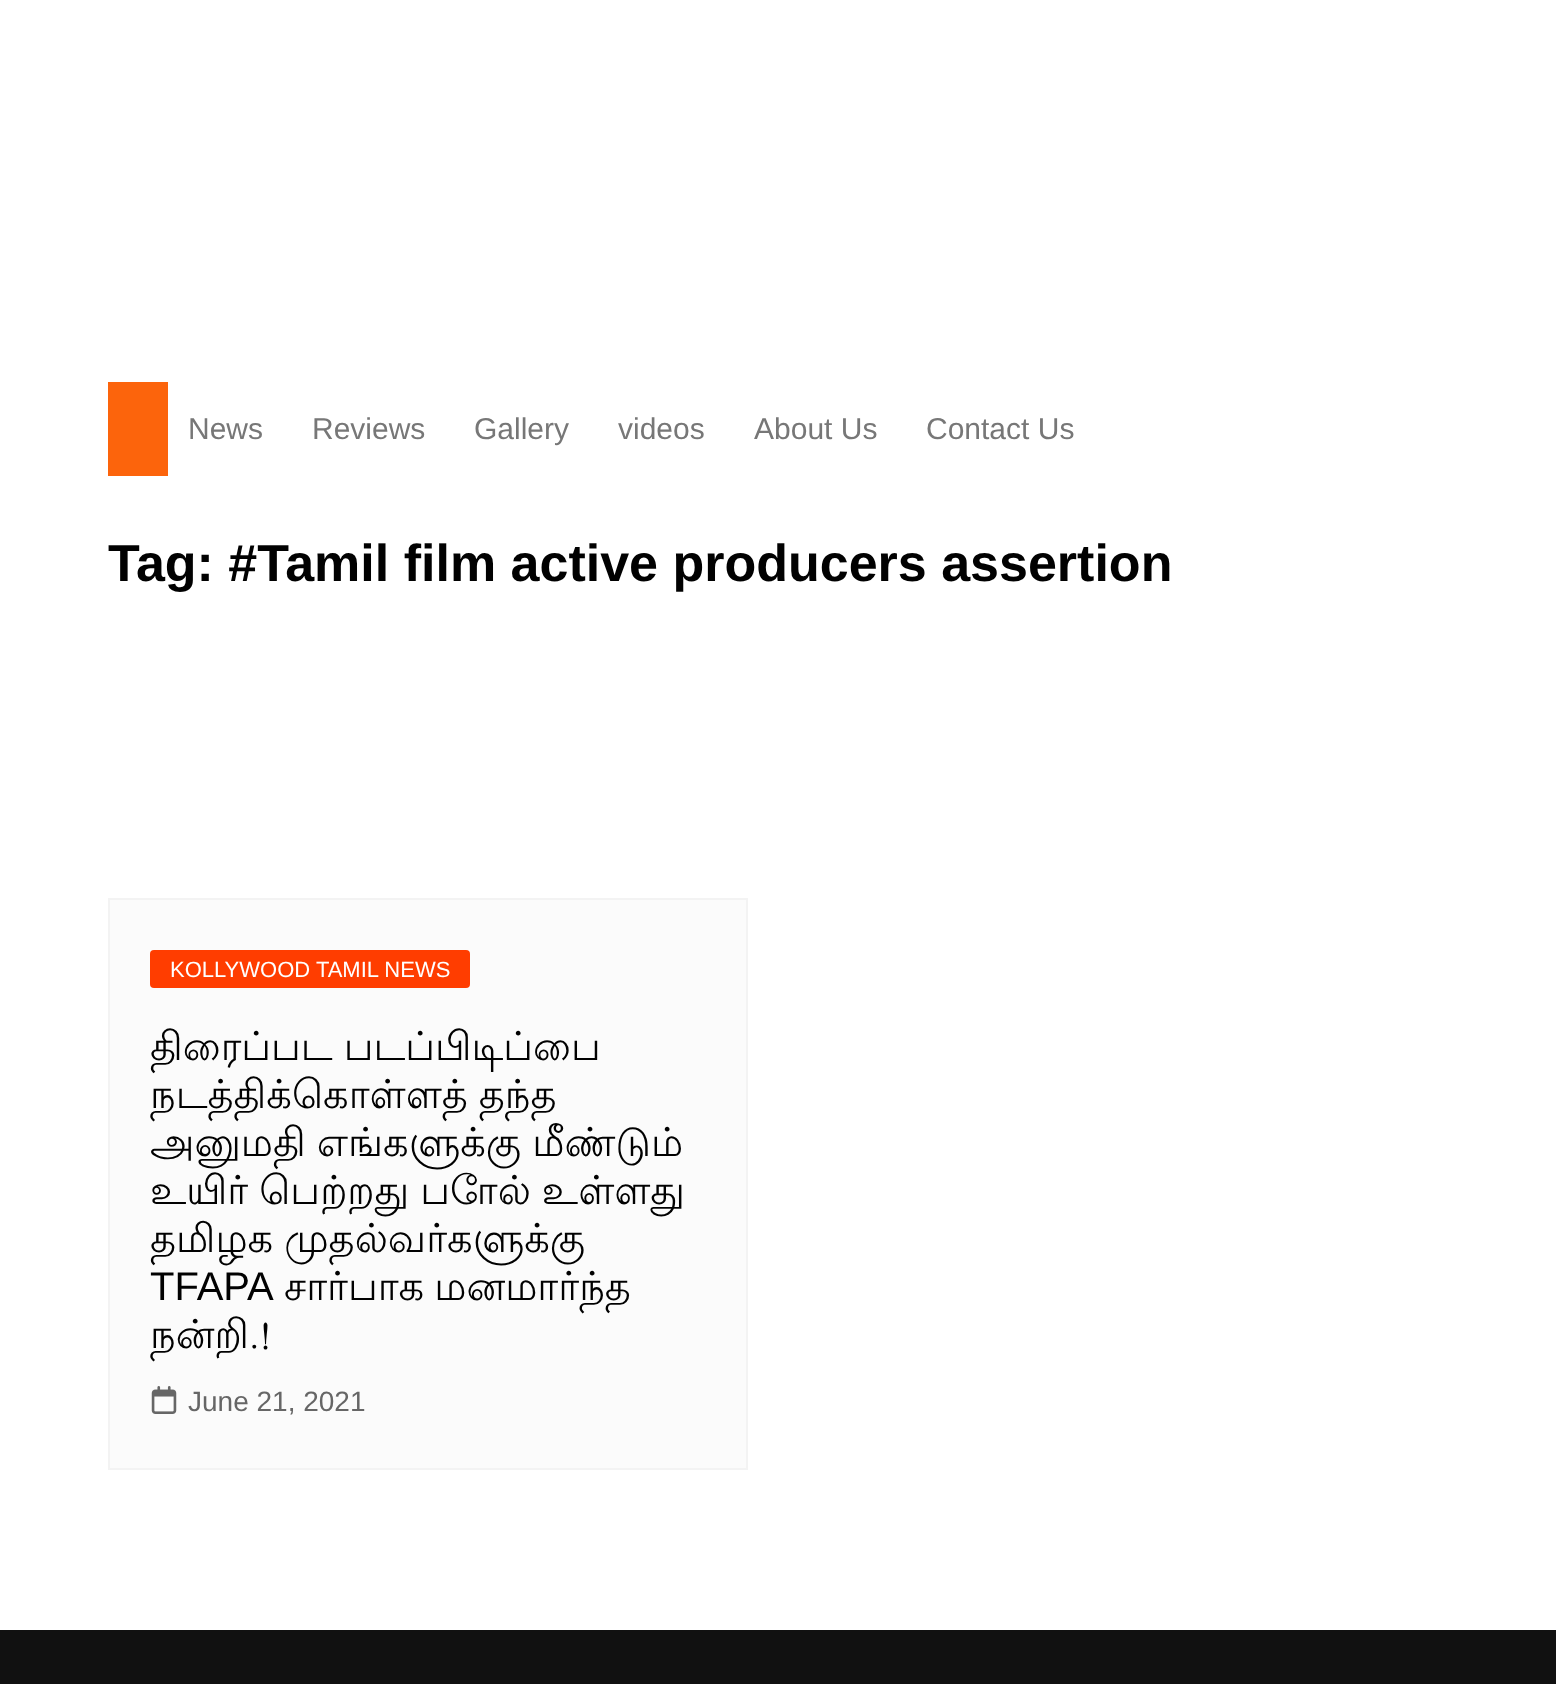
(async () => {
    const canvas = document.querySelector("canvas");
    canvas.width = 1556;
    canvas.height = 1684;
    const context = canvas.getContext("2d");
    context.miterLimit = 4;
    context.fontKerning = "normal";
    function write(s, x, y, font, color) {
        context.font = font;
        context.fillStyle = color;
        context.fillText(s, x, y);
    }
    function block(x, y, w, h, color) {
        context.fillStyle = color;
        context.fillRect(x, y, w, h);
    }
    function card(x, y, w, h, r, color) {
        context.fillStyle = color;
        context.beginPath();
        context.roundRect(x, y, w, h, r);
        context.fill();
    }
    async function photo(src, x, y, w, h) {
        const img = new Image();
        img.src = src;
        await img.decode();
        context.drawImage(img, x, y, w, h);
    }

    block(0, 0, 1556, 1684, "rgb(255, 255, 255)");
    block(108, 382, 60, 94, "rgb(252, 100, 12)");
    write("News", 188, 439, "30px Liberation Sans", "rgb(119, 119, 119)");
    write("Reviews", 312, 439, "30px Liberation Sans", "rgb(119, 119, 119)");
    write("Gallery", 474, 439, "30px Liberation Sans", "rgb(119, 119, 119)");
    write("videos", 618, 439, "30px Liberation Sans", "rgb(119, 119, 119)");
    write("About Us", 754, 439, "30px Liberation Sans", "rgb(119, 119, 119)");
    write("Contact Us", 926, 439, "30px Liberation Sans", "rgb(119, 119, 119)");
    write("Tag: #Tamil film active producers assertion", 108, 581, "bold 52px Liberation Sans", "rgb(1, 1, 1)");
    context.fillStyle = "rgb(251, 251, 251)";
    context.beginPath();
    context.rect(109, 899, 638, 570);
    context.fill();
    context.strokeStyle = "rgb(243, 243, 243)";
    context.lineWidth = 2;
    context.stroke();
    card(150, 950, 320, 38, 4, "rgb(255, 61, 0)");
    write("KOLLYWOOD TAMIL NEWS", 170, 977, "22px Liberation Sans", "rgb(255, 255, 255)");
    context.wordSpacing = "-1px";
    write("திரைப்பட படப்பிடிப்பை", 150, 1060, "40px Lohit Tamil", "rgb(1, 1, 1)");
    write("நடத்திக்கொள்ளத் தந்த", 150, 1108, "40px Lohit Tamil", "rgb(1, 1, 1)");
    write("அனுமதி எங்களுக்கு மீண்டும்", 150, 1156, "40px Lohit Tamil", "rgb(1, 1, 1)");
    write("உயிர் பெற்றது போல் உள்ளது", 150, 1204, "40px Lohit Tamil", "rgb(1, 1, 1)");
    write("தமிழக முதல்வர்களுக்கு", 150, 1252, "40px Lohit Tamil", "rgb(1, 1, 1)");
    context.wordSpacing = "0px";
    write("TFAPA", 150, 1300, "40px Liberation Sans", "rgb(1, 1, 1)");
    context.wordSpacing = "-2px";
    write("சார்பாக மனமார்ந்த", 284, 1300, "40px Lohit Tamil", "rgb(1, 1, 1)");
    context.wordSpacing = "0px";
    write("நன்றி.!‌", 150, 1348, "40px Lohit Tamil", "rgb(1, 1, 1)");
    await photo("media/1.png", 151, 1386, 26, 28);
    write("June 21, 2021", 188, 1411, "28px Liberation Sans", "rgb(102, 102, 102)");
    block(0, 1630, 1556, 54, "rgb(17, 17, 17)");
})();
